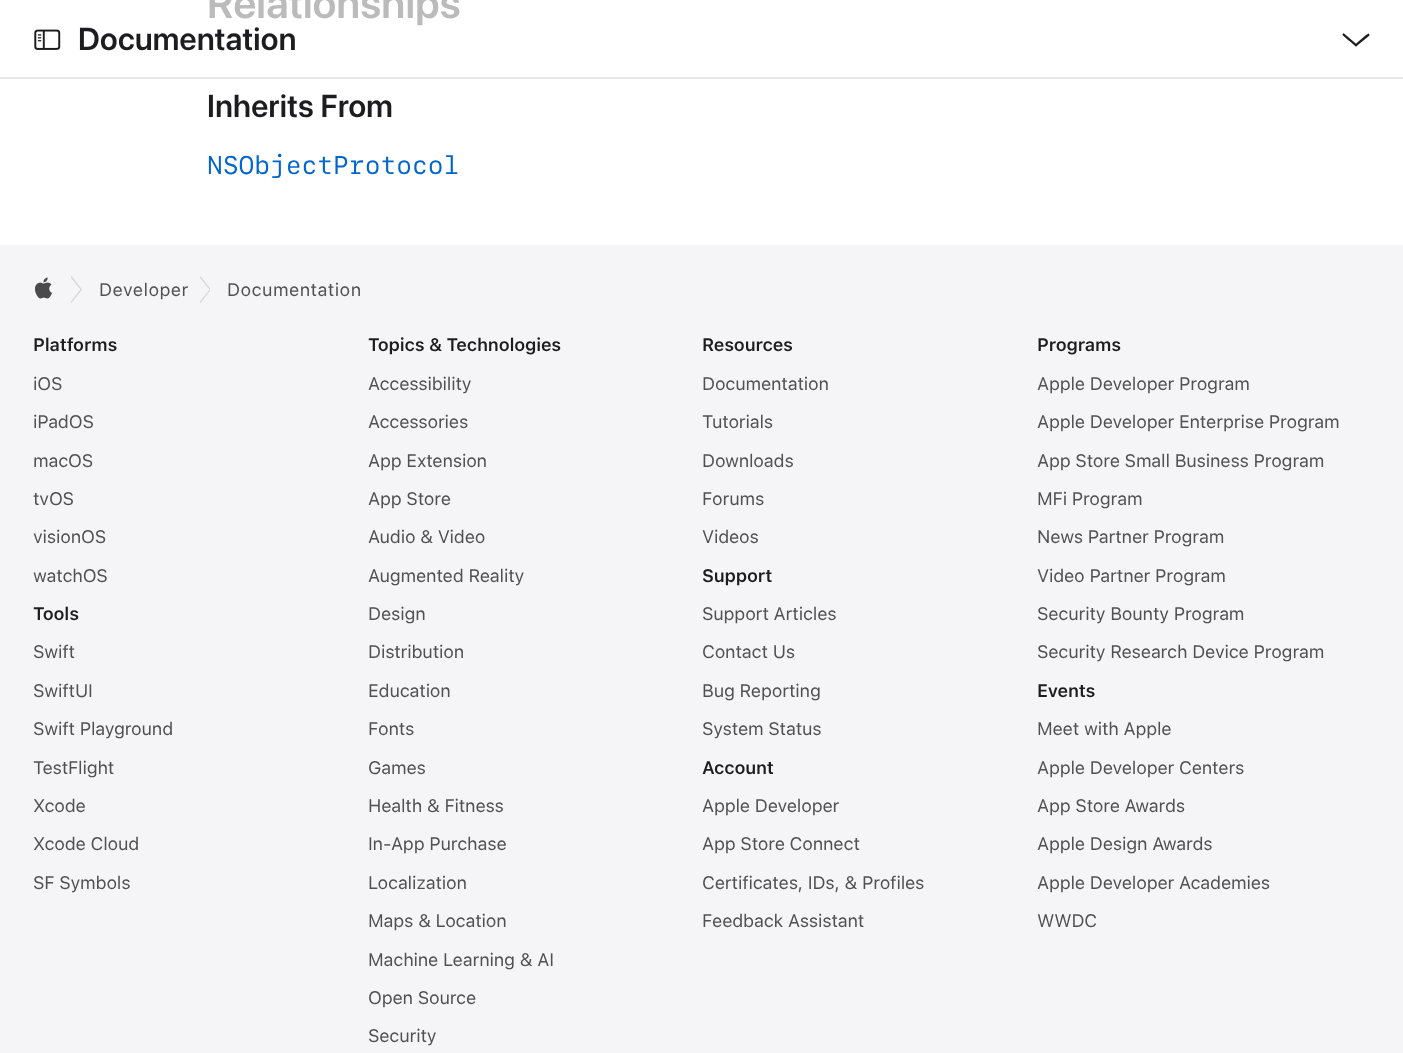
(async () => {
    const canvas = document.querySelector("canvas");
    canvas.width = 1403;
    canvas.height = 1053;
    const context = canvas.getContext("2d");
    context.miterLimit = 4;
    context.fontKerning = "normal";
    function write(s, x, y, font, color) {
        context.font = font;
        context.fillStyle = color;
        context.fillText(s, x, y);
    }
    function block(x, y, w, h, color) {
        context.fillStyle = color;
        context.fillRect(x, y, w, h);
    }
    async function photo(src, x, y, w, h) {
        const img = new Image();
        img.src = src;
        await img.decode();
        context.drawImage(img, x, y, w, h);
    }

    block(0, 0, 1403, 1053, "rgb(255, 255, 255)");
    await photo("media/1.png", 34, 29, 27, 21);
    context.letterSpacing = "0.3px";
    write("Documentation", 78, 50, "600 31.5px SF Pro Display", "rgb(29, 29, 31)");
    context.beginPath();
    context.moveTo(1344, 33.5);
    context.lineTo(1357.5, 45);
    context.lineTo(1356, 46.5);
    context.bezierCurveTo(1354.5, 45, 1342.5, 35.5, 1342.5, 35);
    context.bezierCurveTo(1342.5, 34, 1343.5, 33, 1344, 33.5);
    context.closePath();
    context.fill();
    context.beginPath();
    context.moveTo(1354.5, 45);
    context.bezierCurveTo(1356, 43.5, 1367.5, 33.5, 1368.5, 33.5);
    context.bezierCurveTo(1369, 34, 1369.5, 34.5, 1369.5, 35.5);
    context.lineTo(1356, 46.5);
    context.closePath();
    context.fill();
    block(0, 77, 1403, 2, "rgb(232, 232, 233)");
    context.letterSpacing = "0.25px";
    write("Relationships", 207, 18, "600 42px SF Pro Display", "rgb(187, 187, 188)");
    context.letterSpacing = "0.3px";
    write("Inherits From", 207, 117, "600 31.5px SF Pro Display", "rgb(29, 29, 31)");
    context.letterSpacing = "0px";
    write("NSObjectProtocol", 207, 174, "25.5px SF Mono", "rgb(0, 102, 204)");
    block(0, 245, 1403, 808, "rgb(245, 245, 247)");
    await photo("media/2.png", 35, 277, 17, 22);
    context.save();
    context.beginPath();
    context.rect(71, 276, 11, 27);
    context.clip();
    context.fillStyle = "rgb(214, 214, 214)";
    context.beginPath();
    context.moveTo(71.5, 276);
    context.lineTo(82, 289.5);
    context.lineTo(71.5, 303);
    context.lineTo(70.5, 302);
    context.lineTo(80.5, 289.5);
    context.lineTo(70.5, 277);
    context.closePath();
    context.fill();
    context.restore();
    context.letterSpacing = "0.4px";
    write("Developer", 99, 296, "18px SF Pro Text", "rgb(81, 81, 84)");
    context.save();
    context.beginPath();
    context.rect(200, 276, 10, 27);
    context.clip();
    context.fillStyle = "rgb(214, 214, 214)";
    context.beginPath();
    context.moveTo(200.5, 276);
    context.lineTo(211, 289.5);
    context.lineTo(200.5, 303);
    context.lineTo(199.5, 302);
    context.lineTo(209.5, 289.5);
    context.lineTo(199.5, 277);
    context.closePath();
    context.fill();
    context.restore();
    write("Documentation", 227, 296, "18px SF Pro Text", "rgb(81, 81, 84)");
    context.letterSpacing = "-0.2px";
    write("Platforms", 33, 351, "600 18px SF Pro Text", "rgb(29, 29, 31)");
    write("iOS", 33, 390, "18px SF Pro Text", "rgb(81, 81, 84)");
    write("iPadOS", 33, 428, "18px SF Pro Text", "rgb(81, 81, 84)");
    write("macOS", 33, 467, "18px SF Pro Text", "rgb(81, 81, 84)");
    write("tvOS", 33, 505, "18px SF Pro Text", "rgb(81, 81, 84)");
    write("visionOS", 33, 543, "18px SF Pro Text", "rgb(81, 81, 84)");
    write("watchOS", 33, 582, "18px SF Pro Text", "rgb(81, 81, 84)");
    write("Tools", 33, 620, "600 18px SF Pro Text", "rgb(29, 29, 31)");
    write("Swift", 33, 658, "18px SF Pro Text", "rgb(81, 81, 84)");
    write("SwiftUI", 33, 697, "18px SF Pro Text", "rgb(81, 81, 84)");
    write("Swift Playground", 33, 735, "18px SF Pro Text", "rgb(81, 81, 84)");
    write("TestFlight", 33, 774, "18px SF Pro Text", "rgb(81, 81, 84)");
    write("Xcode", 33, 812, "18px SF Pro Text", "rgb(81, 81, 84)");
    write("Xcode Cloud", 33, 850, "18px SF Pro Text", "rgb(81, 81, 84)");
    write("SF Symbols", 33, 889, "18px SF Pro Text", "rgb(81, 81, 84)");
    write("Topics & Technologies", 368, 351, "600 18px SF Pro Text", "rgb(29, 29, 31)");
    write("Accessibility", 368, 390, "18px SF Pro Text", "rgb(81, 81, 84)");
    write("Accessories", 368, 428, "18px SF Pro Text", "rgb(81, 81, 84)");
    write("App Extension", 368, 467, "18px SF Pro Text", "rgb(81, 81, 84)");
    write("App Store", 368, 505, "18px SF Pro Text", "rgb(81, 81, 84)");
    write("Audio & Video", 368, 543, "18px SF Pro Text", "rgb(81, 81, 84)");
    write("Augmented Reality", 368, 582, "18px SF Pro Text", "rgb(81, 81, 84)");
    write("Design", 368, 620, "18px SF Pro Text", "rgb(81, 81, 84)");
    write("Distribution", 368, 658, "18px SF Pro Text", "rgb(81, 81, 84)");
    write("Education", 368, 697, "18px SF Pro Text", "rgb(81, 81, 84)");
    write("Fonts", 368, 735, "18px SF Pro Text", "rgb(81, 81, 84)");
    write("Games", 368, 774, "18px SF Pro Text", "rgb(81, 81, 84)");
    write("Health & Fitness", 368, 812, "18px SF Pro Text", "rgb(81, 81, 84)");
    write("In-App Purchase", 368, 850, "18px SF Pro Text", "rgb(81, 81, 84)");
    write("Localization", 368, 889, "18px SF Pro Text", "rgb(81, 81, 84)");
    write("Maps & Location", 368, 927, "18px SF Pro Text", "rgb(81, 81, 84)");
    write("Machine Learning & AI", 368, 966, "18px SF Pro Text", "rgb(81, 81, 84)");
    write("Open Source", 368, 1004, "18px SF Pro Text", "rgb(81, 81, 84)");
    write("Security", 368, 1042, "18px SF Pro Text", "rgb(81, 81, 84)");
    write("Resources", 702, 351, "600 18px SF Pro Text", "rgb(29, 29, 31)");
    write("Documentation", 702, 390, "18px SF Pro Text", "rgb(81, 81, 84)");
    write("Tutorials", 702, 428, "18px SF Pro Text", "rgb(81, 81, 84)");
    write("Downloads", 702, 467, "18px SF Pro Text", "rgb(81, 81, 84)");
    write("Forums", 702, 505, "18px SF Pro Text", "rgb(81, 81, 84)");
    write("Videos", 702, 543, "18px SF Pro Text", "rgb(81, 81, 84)");
    write("Support", 702, 582, "600 18px SF Pro Text", "rgb(29, 29, 31)");
    write("Support Articles", 702, 620, "18px SF Pro Text", "rgb(81, 81, 84)");
    write("Contact Us", 702, 658, "18px SF Pro Text", "rgb(81, 81, 84)");
    write("Bug Reporting", 702, 697, "18px SF Pro Text", "rgb(81, 81, 84)");
    write("System Status", 702, 735, "18px SF Pro Text", "rgb(81, 81, 84)");
    write("Account", 702, 774, "600 18px SF Pro Text", "rgb(29, 29, 31)");
    write("Apple Developer", 702, 812, "18px SF Pro Text", "rgb(81, 81, 84)");
    write("App Store Connect", 702, 850, "18px SF Pro Text", "rgb(81, 81, 84)");
    write("Certificates, IDs, & Profiles", 702, 889, "18px SF Pro Text", "rgb(81, 81, 84)");
    write("Feedback Assistant", 702, 927, "18px SF Pro Text", "rgb(81, 81, 84)");
    write("Programs", 1037, 351, "600 18px SF Pro Text", "rgb(29, 29, 31)");
    write("Apple Developer Program", 1037, 390, "18px SF Pro Text", "rgb(81, 81, 84)");
    write("Apple Developer Enterprise Program", 1037, 428, "18px SF Pro Text", "rgb(81, 81, 84)");
    write("App Store Small Business Program", 1037, 467, "18px SF Pro Text", "rgb(81, 81, 84)");
    write("MFi Program", 1037, 505, "18px SF Pro Text", "rgb(81, 81, 84)");
    write("News Partner Program", 1037, 543, "18px SF Pro Text", "rgb(81, 81, 84)");
    write("Video Partner Program", 1037, 582, "18px SF Pro Text", "rgb(81, 81, 84)");
    write("Security Bounty Program", 1037, 620, "18px SF Pro Text", "rgb(81, 81, 84)");
    write("Security Research Device Program", 1037, 658, "18px SF Pro Text", "rgb(81, 81, 84)");
    write("Events", 1037, 697, "600 18px SF Pro Text", "rgb(29, 29, 31)");
    write("Meet with Apple", 1037, 735, "18px SF Pro Text", "rgb(81, 81, 84)");
    write("Apple Developer Centers", 1037, 774, "18px SF Pro Text", "rgb(81, 81, 84)");
    write("App Store Awards", 1037, 812, "18px SF Pro Text", "rgb(81, 81, 84)");
    write("Apple Design Awards", 1037, 850, "18px SF Pro Text", "rgb(81, 81, 84)");
    write("Apple Developer Academies", 1037, 889, "18px SF Pro Text", "rgb(81, 81, 84)");
    write("WWDC", 1037, 927, "18px SF Pro Text", "rgb(81, 81, 84)");
})();
